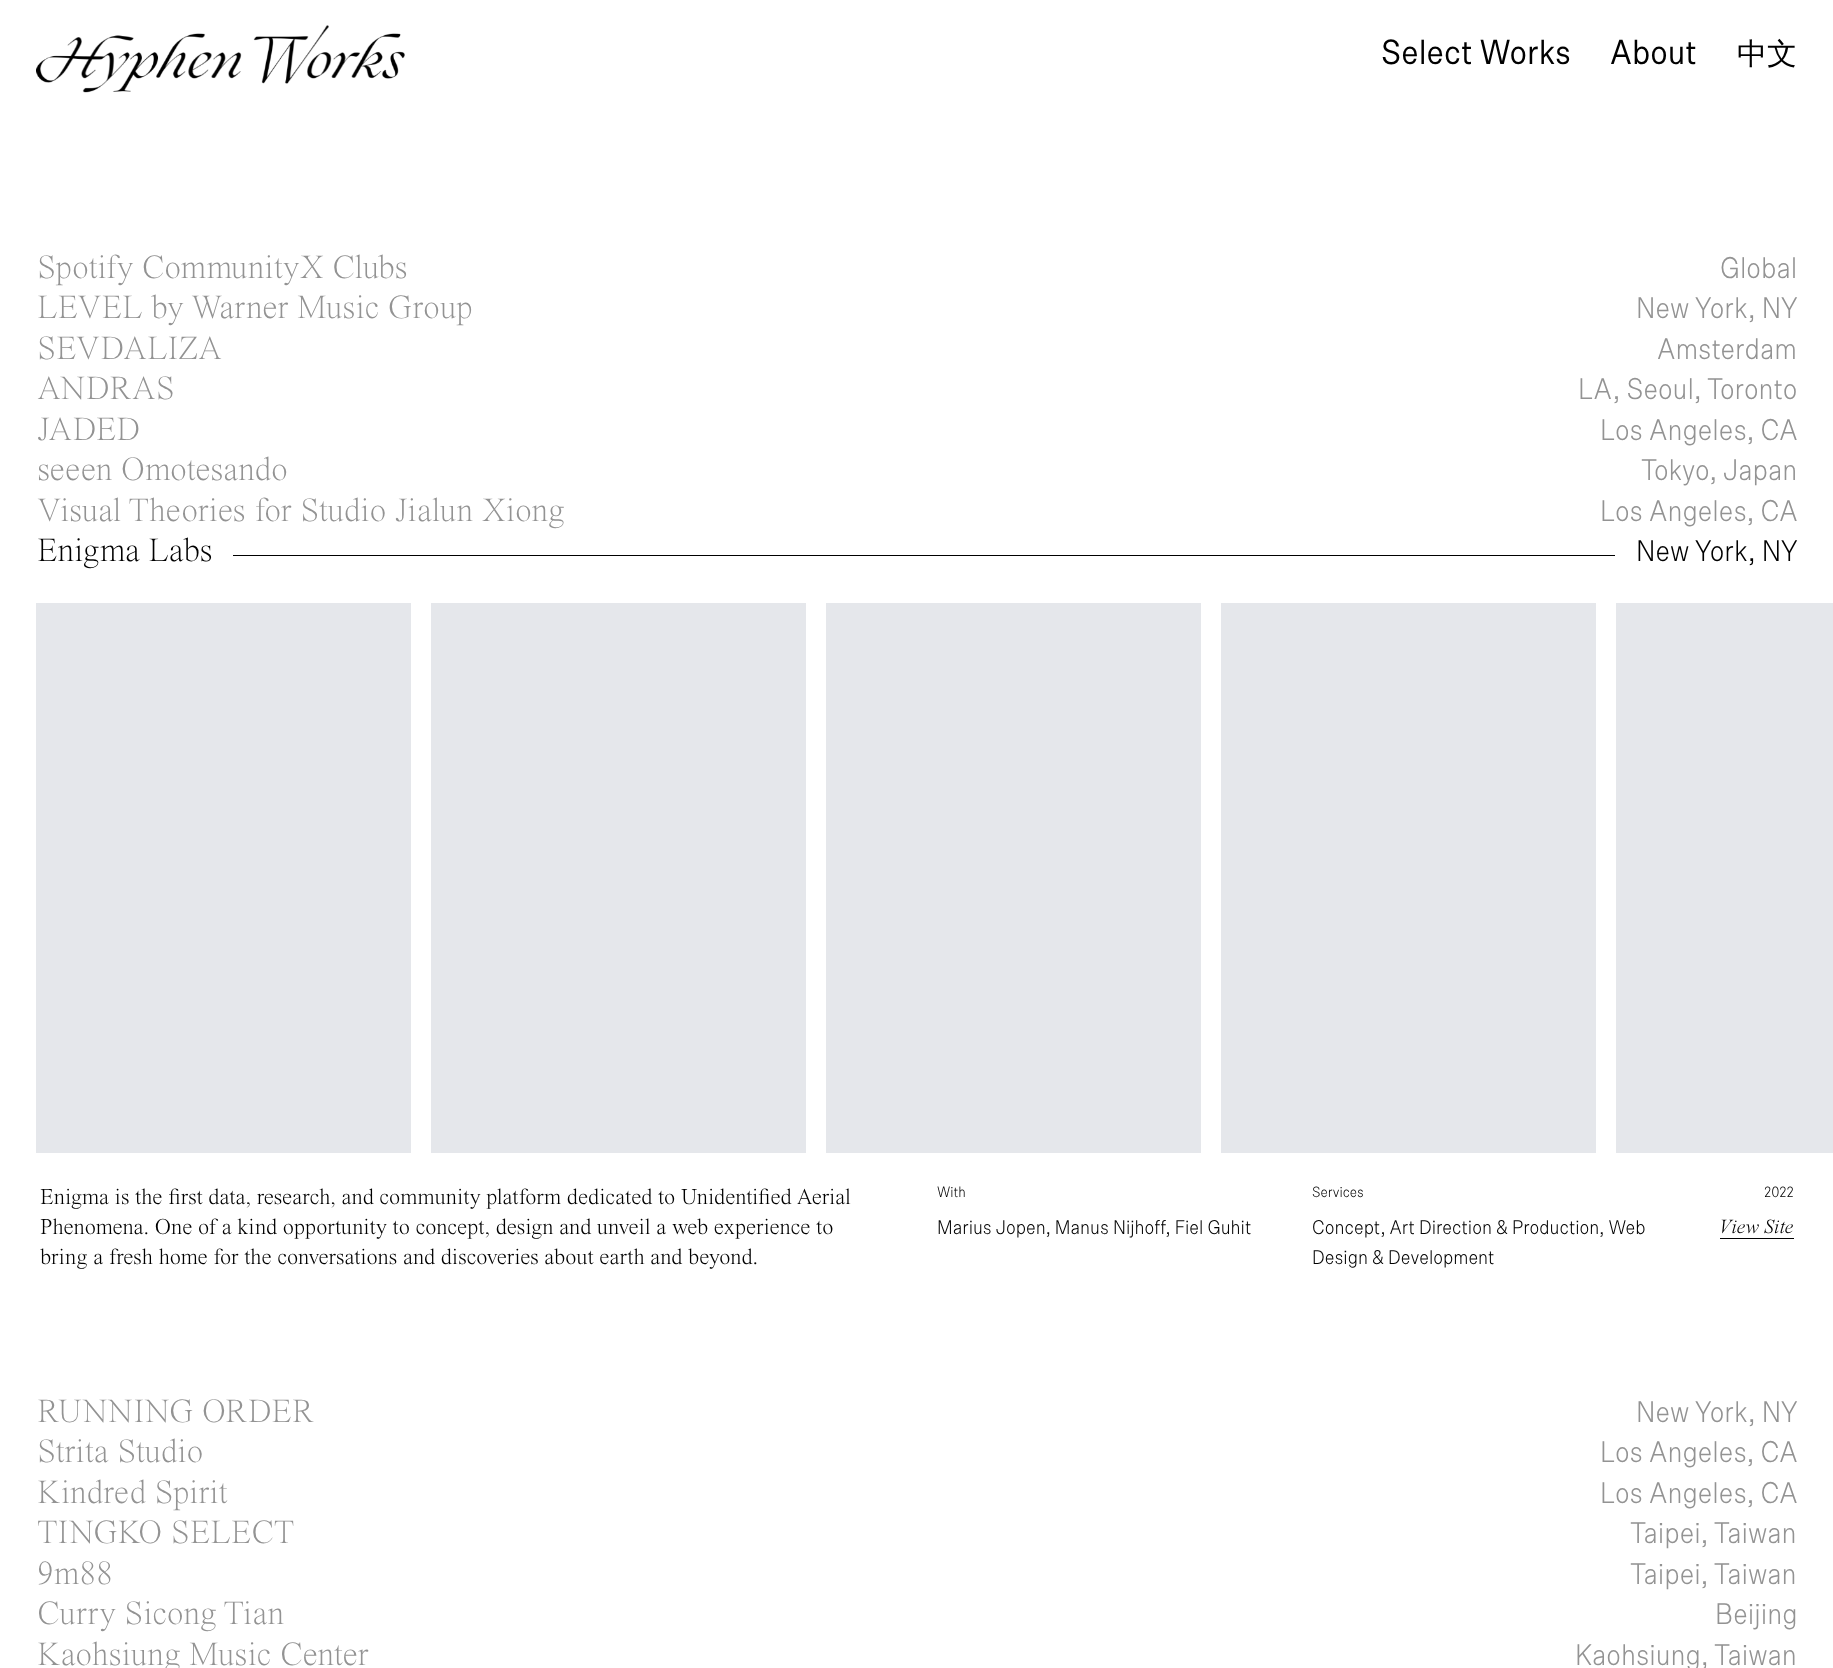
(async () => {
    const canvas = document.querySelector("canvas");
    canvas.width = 1833;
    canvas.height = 1668;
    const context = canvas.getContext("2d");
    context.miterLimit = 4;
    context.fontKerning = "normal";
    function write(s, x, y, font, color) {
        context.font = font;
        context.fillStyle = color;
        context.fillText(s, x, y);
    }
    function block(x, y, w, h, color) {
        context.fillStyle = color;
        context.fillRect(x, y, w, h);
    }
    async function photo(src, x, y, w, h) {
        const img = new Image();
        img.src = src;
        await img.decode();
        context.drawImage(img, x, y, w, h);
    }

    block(0, 0, 1833, 1668, "rgb(255, 255, 255)");
    await photo("media/1.png", 36, 25, 369, 68);
    write("Select Works", 1381, 64, "35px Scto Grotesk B", "rgb(0, 0, 0)");
    write("About", 1610, 64, "35px Scto Grotesk B", "rgb(0, 0, 0)");
    write("中文", 1737, 64, "500 30px WenQuanYi Zen Hei", "rgb(0, 0, 0)");
    write("Spotify CommunityX Clubs", 37, 278, "200 33.75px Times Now", "rgb(147, 147, 147)");
    write("Global", 1720, 278, "300 30px Scto Grotesk B", "rgb(147, 147, 147)");
    write("LEVEL by Warner Music Group", 37, 318, "200 33.75px Times Now", "rgb(147, 147, 147)");
    write("New York, NY", 1636, 318, "300 30px Scto Grotesk B", "rgb(147, 147, 147)");
    write("SEVDALIZA", 37, 359, "200 33.75px Times Now", "rgb(147, 147, 147)");
    write("Amsterdam", 1657, 359, "300 30px Scto Grotesk B", "rgb(147, 147, 147)");
    write("ANDRAS", 37, 399, "200 33.75px Times Now", "rgb(147, 147, 147)");
    write("LA, Seoul, Toronto", 1578, 399, "300 30px Scto Grotesk B", "rgb(147, 147, 147)");
    write("JADED", 37, 440, "200 33.75px Times Now", "rgb(147, 147, 147)");
    write("Los Angeles, CA", 1600, 440, "300 30px Scto Grotesk B", "rgb(147, 147, 147)");
    write("seeen Omotesando", 37, 480, "200 33.75px Times Now", "rgb(147, 147, 147)");
    write("Tokyo, Japan", 1641, 480, "300 30px Scto Grotesk B", "rgb(147, 147, 147)");
    write("Visual Theories for Studio Jialun Xiong", 37, 521, "200 33.75px Times Now", "rgb(147, 147, 147)");
    write("Los Angeles, CA", 1600, 521, "300 30px Scto Grotesk B", "rgb(147, 147, 147)");
    write("Enigma Labs", 37, 561, "200 33.75px Times Now", "rgb(0, 0, 0)");
    block(233, 555, 1382, 1, "rgb(0, 0, 0)");
    write("New York, NY", 1636, 561, "300 30px Scto Grotesk B", "rgb(0, 0, 0)");
    block(36, 603, 375, 550, "rgb(229, 231, 235)");
    block(431, 603, 375, 550, "rgb(229, 231, 235)");
    block(826, 603, 375, 550, "rgb(229, 231, 235)");
    block(1221, 603, 375, 550, "rgb(229, 231, 235)");
    block(1616, 603, 217, 550, "rgb(229, 231, 235)");
    write("Enigma is the first data, research, and community platform dedicated to Unidentified Aerial", 40, 1204, "300 22.5px Times Now", "rgb(0, 0, 0)");
    write("Phenomena. One of a kind opportunity to concept, design and unveil a web experience to", 40, 1234, "300 22.5px Times Now", "rgb(0, 0, 0)");
    write("bring a fresh home for the conversations and discoveries about earth and beyond.", 40, 1264, "300 22.5px Times Now", "rgb(0, 0, 0)");
    write("With", 937, 1197, "300 15px Scto Grotesk B", "rgb(0, 0, 0)");
    write("Marius Jopen, Manus Nijhoff, Fiel Guhit", 937, 1234, "300 20px Scto Grotesk B", "rgb(0, 0, 0)");
    write("Services", 1312, 1197, "300 15px Scto Grotesk B", "rgb(0, 0, 0)");
    write("Concept, Art Direction & Production, Web", 1312, 1234, "300 20px Scto Grotesk B", "rgb(0, 0, 0)");
    write("Design & Development", 1312, 1264, "300 20px Scto Grotesk B", "rgb(0, 0, 0)");
    write("2022", 1764, 1197, "300 15px Scto Grotesk B", "rgb(0, 0, 0)");
    write("View Site", 1719, 1233, "italic 300 20px Times Now", "rgb(0, 0, 0)");
    block(1720, 1238, 74, 1, "rgb(0, 0, 0)");
    write("RUNNING ORDER", 37, 1422, "200 33.75px Times Now", "rgb(147, 147, 147)");
    write("New York, NY", 1636, 1422, "300 30px Scto Grotesk B", "rgb(147, 147, 147)");
    write("Strita Studio", 37, 1462, "200 33.75px Times Now", "rgb(147, 147, 147)");
    write("Los Angeles, CA", 1600, 1462, "300 30px Scto Grotesk B", "rgb(147, 147, 147)");
    write("Kindred Spirit", 37, 1503, "200 33.75px Times Now", "rgb(147, 147, 147)");
    write("Los Angeles, CA", 1600, 1503, "300 30px Scto Grotesk B", "rgb(147, 147, 147)");
    write("TINGKO SELECT", 37, 1543, "200 33.75px Times Now", "rgb(147, 147, 147)");
    write("Taipei, Taiwan", 1630, 1543, "300 30px Scto Grotesk B", "rgb(147, 147, 147)");
    write("9m88", 37, 1584, "200 33.75px Times Now", "rgb(147, 147, 147)");
    write("Taipei, Taiwan", 1630, 1584, "300 30px Scto Grotesk B", "rgb(147, 147, 147)");
    write("Curry Sicong Tian", 37, 1624, "200 33.75px Times Now", "rgb(147, 147, 147)");
    write("Beijing", 1715, 1624, "300 30px Scto Grotesk B", "rgb(147, 147, 147)");
    write("Kaohsiung Music Center", 37, 1665, "200 33.75px Times Now", "rgb(147, 147, 147)");
    write("Kaohsiung, Taiwan", 1575, 1665, "300 30px Scto Grotesk B", "rgb(147, 147, 147)");
})();
